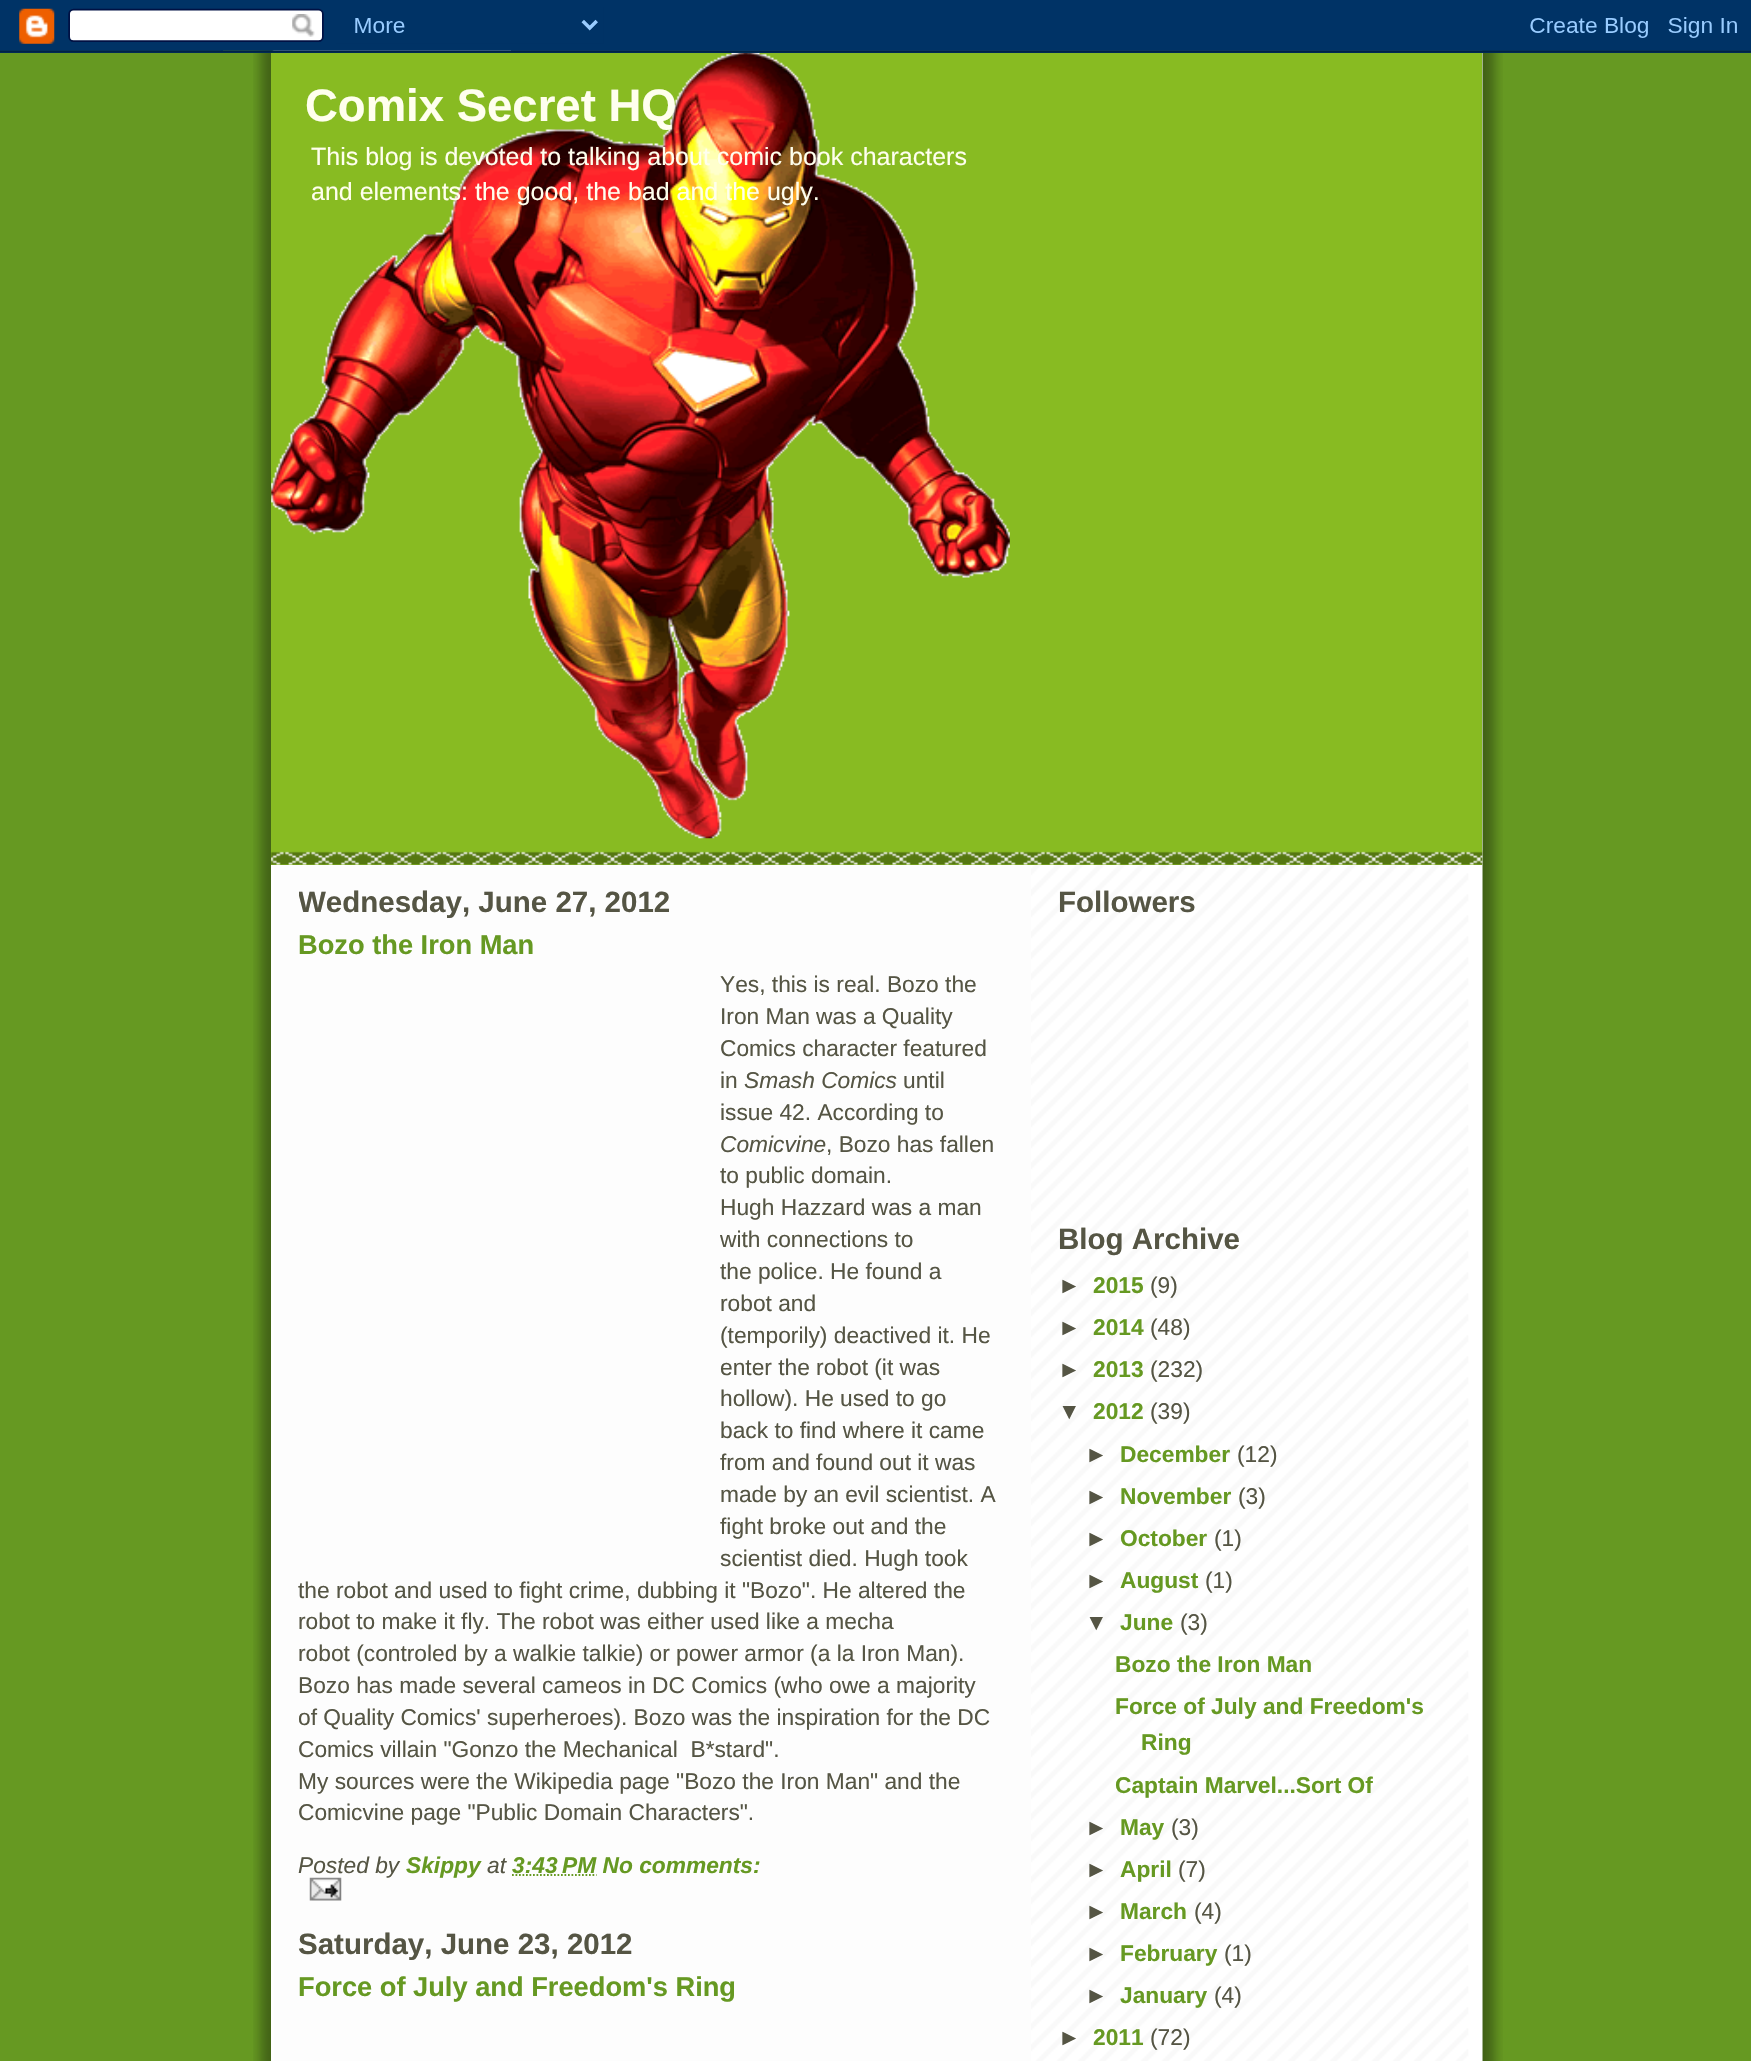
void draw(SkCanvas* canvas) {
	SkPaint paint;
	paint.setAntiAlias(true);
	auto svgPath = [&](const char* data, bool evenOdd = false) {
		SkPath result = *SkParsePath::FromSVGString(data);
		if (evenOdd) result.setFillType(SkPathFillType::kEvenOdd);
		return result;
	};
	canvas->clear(0xff669922);
	canvas->drawImageRect(SkImages::DeferredFromEncodedData(SkData::MakeFromFileName("img1.png")), SkRect::MakeXYWH(253, 50, 1250, 2011), SkSamplingOptions());
	canvas->drawImageRect(SkImages::DeferredFromEncodedData(SkData::MakeFromFileName("img2.png")), SkRect::MakeXYWH(0, 0, 1751, 53), SkSamplingOptions());
	paint.setColor(0xffffffff);
	canvas->drawRect(SkRect::MakeXYWH(271, 865, 3, 1196), paint);
	canvas->drawImageRect(SkImages::DeferredFromEncodedData(SkData::MakeFromFileName("img3.png")), SkRect::MakeXYWH(1031, 53, 452, 2008), SkSamplingOptions());
	paint.setColor(0xff88bb22);
	canvas->drawRect(SkRect::MakeXYWH(271, 53, 1211, 812), paint);
	canvas->drawImageRect(SkImages::DeferredFromEncodedData(SkData::MakeFromFileName("img4.png")), SkRect::MakeXYWH(271, 850, 1212, 15), SkSamplingOptions());
	canvas->drawImageRect(SkImages::DeferredFromEncodedData(SkData::MakeFromFileName("img5.png")), SkRect::MakeXYWH(271, 53, 739, 786), SkSamplingOptions());
	SkFont f1(fontMgr->matchFamilyStyle("Liberation Sans", SkFontStyle::Bold()), 45.5);
	f1.setSubpixel(true);
	paint.setColor(0xffffffee);
	canvas->drawString("Comix Secret HQ", 305, 121, f1, paint);
	SkFont f2(fontMgr->matchFamilyStyle("Liberation Sans", SkFontStyle::Normal()), 25);
	f2.setSubpixel(true);
	canvas->drawString("This blog is devoted to talking about comic book characters", 311, 165, f2, paint);
	canvas->drawString("and elements: the good, the bad and the ugly.", 311, 200, f2, paint);
	canvas->save();
	canvas->clipRect(SkRect::MakeXYWH(299, 865, 700, 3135));
	SkFont f3(fontMgr->matchFamilyStyle("Liberation Sans", SkFontStyle::Bold()), 29.5);
	f3.setSubpixel(true);
	paint.setColor(0xff555544);
	canvas->drawString("Wednesday, June 27, 2012", 298, 912, f3, paint);
	canvas->restore();
	SkFont f4(fontMgr->matchFamilyStyle("Liberation Sans", SkFontStyle::Bold()), 27.25);
	f4.setSubpixel(true);
	paint.setColor(0xff669922);
	canvas->drawString("Bozo the Iron Man", 298, 954, f4, paint);
	SkFont f5(fontMgr->matchFamilyStyle("Liberation Sans", SkFontStyle::Normal()), 22.75);
	f5.setSubpixel(true);
	paint.setColor(0xff555544);
	canvas->drawString("Yes, this is real. Bozo the", 720, 992, f5, paint);
	canvas->drawString("Iron Man was a Quality", 720, 1024, f5, paint);
	canvas->drawString("Comics character featured", 720, 1056, f5, paint);
	canvas->drawString("in", 720, 1088, f5, paint);
	SkFont f6(fontMgr->matchFamilyStyle("Liberation Sans", SkFontStyle::Italic()), 22.75);
	f6.setSubpixel(true);
	canvas->drawString("Smash Comics", 744, 1088, f6, paint);
	canvas->drawString("until", 903, 1088, f5, paint);
	canvas->drawString("issue 42. According to", 720, 1120, f5, paint);
	canvas->drawString("Comicvine", 720, 1152, f6, paint);
	canvas->drawString(", Bozo has fallen", 826, 1152, f5, paint);
	canvas->drawString("to public domain.", 720, 1183, f5, paint);
	canvas->drawString("Hugh Hazzard was a man", 720, 1215, f5, paint);
	canvas->drawString("with connections to", 720, 1247, f5, paint);
	canvas->drawString("the police. He found a", 720, 1279, f5, paint);
	canvas->drawString("robot and", 720, 1311, f5, paint);
	canvas->drawString("(temporily) deactived it. He", 720, 1343, f5, paint);
	canvas->drawString("enter the robot (it was", 720, 1375, f5, paint);
	canvas->drawString("hollow). He used to go", 720, 1406, f5, paint);
	canvas->drawString("back to find where it came", 720, 1438, f5, paint);
	canvas->drawString("from and found out it was", 720, 1470, f5, paint);
	canvas->drawString("made by an evil scientist. A", 720, 1502, f5, paint);
	canvas->drawString("fight broke out and the", 720, 1534, f5, paint);
	canvas->drawString("scientist died. Hugh took", 720, 1566, f5, paint);
	canvas->drawString("the robot and used to fight crime, dubbing it \"Bozo\". He altered the", 298, 1598, f5, paint);
	canvas->drawString("robot to make it fly. The robot was either used like a mecha", 298, 1629, f5, paint);
	canvas->drawString("robot (controled by a walkie talkie) or power armor (a la Iron Man).", 298, 1661, f5, paint);
	canvas->drawString("Bozo has made several cameos in DC Comics (who owe a majority", 298, 1693, f5, paint);
	canvas->drawString("of Quality Comics' superheroes). Bozo was the inspiration for the DC", 298, 1725, f5, paint);
	canvas->drawString("Comics villain \"Gonzo the Mechanical  B*stard\".", 298, 1757, f5, paint);
	canvas->drawString("My sources were the Wikipedia page \"Bozo the Iron Man\" and the", 298, 1789, f5, paint);
	canvas->drawString("Comicvine page \"Public Domain Characters\".", 298, 1820, f5, paint);
	canvas->drawString("Posted by", 298, 1873, f6, paint);
	SkFont f7(fontMgr->matchFamilyStyle("Liberation Sans", SkFontStyle::BoldItalic()), 22.75);
	f7.setSubpixel(true);
	paint.setColor(0xff669922);
	canvas->drawString("Skippy", 406, 1873, f7, paint);
	paint.setColor(0xff555544);
	canvas->drawString("at", 487, 1873, f6, paint);
	paint.setColor(0xff669922);
	canvas->drawString("3:43 PM No comments:", 512, 1873, f7, paint);
	paint.setStroke(true);
	paint.setStrokeWidth(1.8);
	paint.setPathEffect(SkDashPathEffect::Make({{1.75f, 1.75f}}, 0));
	canvas->drawPath(svgPath("M512 1875H596.5"), paint);
	paint.setPathEffect(nullptr);
	canvas->drawImageRect(SkImages::DeferredFromEncodedData(SkData::MakeFromFileName("img6.png")), SkRect::MakeXYWH(309, 1877, 33, 24), SkSamplingOptions());
	paint.setStroke(false);
	paint.setColor(0xff555544);
	canvas->drawString("Saturday, June 23, 2012", 298, 1954, f3, paint);
	paint.setColor(0xff669922);
	canvas->drawString("Force of July and Freedom's Ring", 298, 1996, f4, paint);
	paint.setColor(0xff555544);
	canvas->drawString("Followers", 1058, 912, f3, paint);
	canvas->drawString("Blog Archive", 1058, 1249, f3, paint);
	SkFont f8(fontMgr->matchFamilyStyle("Liberation Sans", SkFontStyle::Bold()), 22.75);
	f8.setSubpixel(true);
	canvas->drawString("►", 1058, 1293, f8, paint);
	paint.setColor(0xff669922);
	canvas->drawString("2015", 1093, 1293, f8, paint);
	paint.setColor(0xff555544);
	canvas->drawString("(9)", 1150, 1293, f5, paint);
	canvas->drawString("►", 1058, 1335, f8, paint);
	paint.setColor(0xff669922);
	canvas->drawString("2014", 1093, 1335, f8, paint);
	paint.setColor(0xff555544);
	canvas->drawString("(48)", 1150, 1335, f5, paint);
	canvas->drawString("►", 1058, 1377, f8, paint);
	paint.setColor(0xff669922);
	canvas->drawString("2013", 1093, 1377, f8, paint);
	paint.setColor(0xff555544);
	canvas->drawString("(232)", 1150, 1377, f5, paint);
	canvas->drawString("▼", 1058, 1419, f8, paint);
	paint.setColor(0xff669922);
	canvas->drawString("2012", 1093, 1419, f8, paint);
	paint.setColor(0xff555544);
	canvas->drawString("(39)", 1150, 1419, f5, paint);
	canvas->drawString("►", 1085, 1462, f8, paint);
	paint.setColor(0xff669922);
	canvas->drawString("December", 1120, 1462, f8, paint);
	paint.setColor(0xff555544);
	canvas->drawString("(12)", 1237, 1462, f5, paint);
	canvas->drawString("►", 1085, 1504, f8, paint);
	paint.setColor(0xff669922);
	canvas->drawString("November", 1120, 1504, f8, paint);
	paint.setColor(0xff555544);
	canvas->drawString("(3)", 1238, 1504, f5, paint);
	canvas->drawString("►", 1085, 1546, f8, paint);
	paint.setColor(0xff669922);
	canvas->drawString("October", 1120, 1546, f8, paint);
	paint.setColor(0xff555544);
	canvas->drawString("(1)", 1214, 1546, f5, paint);
	canvas->drawString("►", 1085, 1588, f8, paint);
	paint.setColor(0xff669922);
	canvas->drawString("August", 1120, 1588, f8, paint);
	paint.setColor(0xff555544);
	canvas->drawString("(1)", 1205, 1588, f5, paint);
	canvas->drawString("▼", 1085, 1630, f8, paint);
	paint.setColor(0xff669922);
	canvas->drawString("June", 1120, 1630, f8, paint);
	paint.setColor(0xff555544);
	canvas->drawString("(3)", 1180, 1630, f5, paint);
	paint.setColor(0xff669922);
	canvas->drawString("Bozo the Iron Man", 1115, 1672, f8, paint);
	canvas->drawString("Force of July and Freedom's", 1115, 1714, f8, paint);
	canvas->drawString("Ring", 1141, 1750, f8, paint);
	canvas->drawString("Captain Marvel...Sort Of", 1115, 1793, f8, paint);
	paint.setColor(0xff555544);
	canvas->drawString("►", 1085, 1835, f8, paint);
	paint.setColor(0xff669922);
	canvas->drawString("May", 1120, 1835, f8, paint);
	paint.setColor(0xff555544);
	canvas->drawString("(3)", 1171, 1835, f5, paint);
	canvas->drawString("►", 1085, 1877, f8, paint);
	paint.setColor(0xff669922);
	canvas->drawString("April", 1120, 1877, f8, paint);
	paint.setColor(0xff555544);
	canvas->drawString("(7)", 1178, 1877, f5, paint);
	canvas->drawString("►", 1085, 1919, f8, paint);
	paint.setColor(0xff669922);
	canvas->drawString("March", 1120, 1919, f8, paint);
	paint.setColor(0xff555544);
	canvas->drawString("(4)", 1194, 1919, f5, paint);
	canvas->drawString("►", 1085, 1961, f8, paint);
	paint.setColor(0xff669922);
	canvas->drawString("February", 1120, 1961, f8, paint);
	paint.setColor(0xff555544);
	canvas->drawString("(1)", 1224, 1961, f5, paint);
	canvas->drawString("►", 1085, 2003, f8, paint);
	paint.setColor(0xff669922);
	canvas->drawString("January", 1120, 2003, f8, paint);
	paint.setColor(0xff555544);
	canvas->drawString("(4)", 1214, 2003, f5, paint);
	canvas->drawString("►", 1058, 2045, f8, paint);
	paint.setColor(0xff669922);
	canvas->drawString("2011", 1093, 2045, f8, paint);
	paint.setColor(0xff555544);
	canvas->drawString("(72)", 1150, 2045, f5, paint);
}
